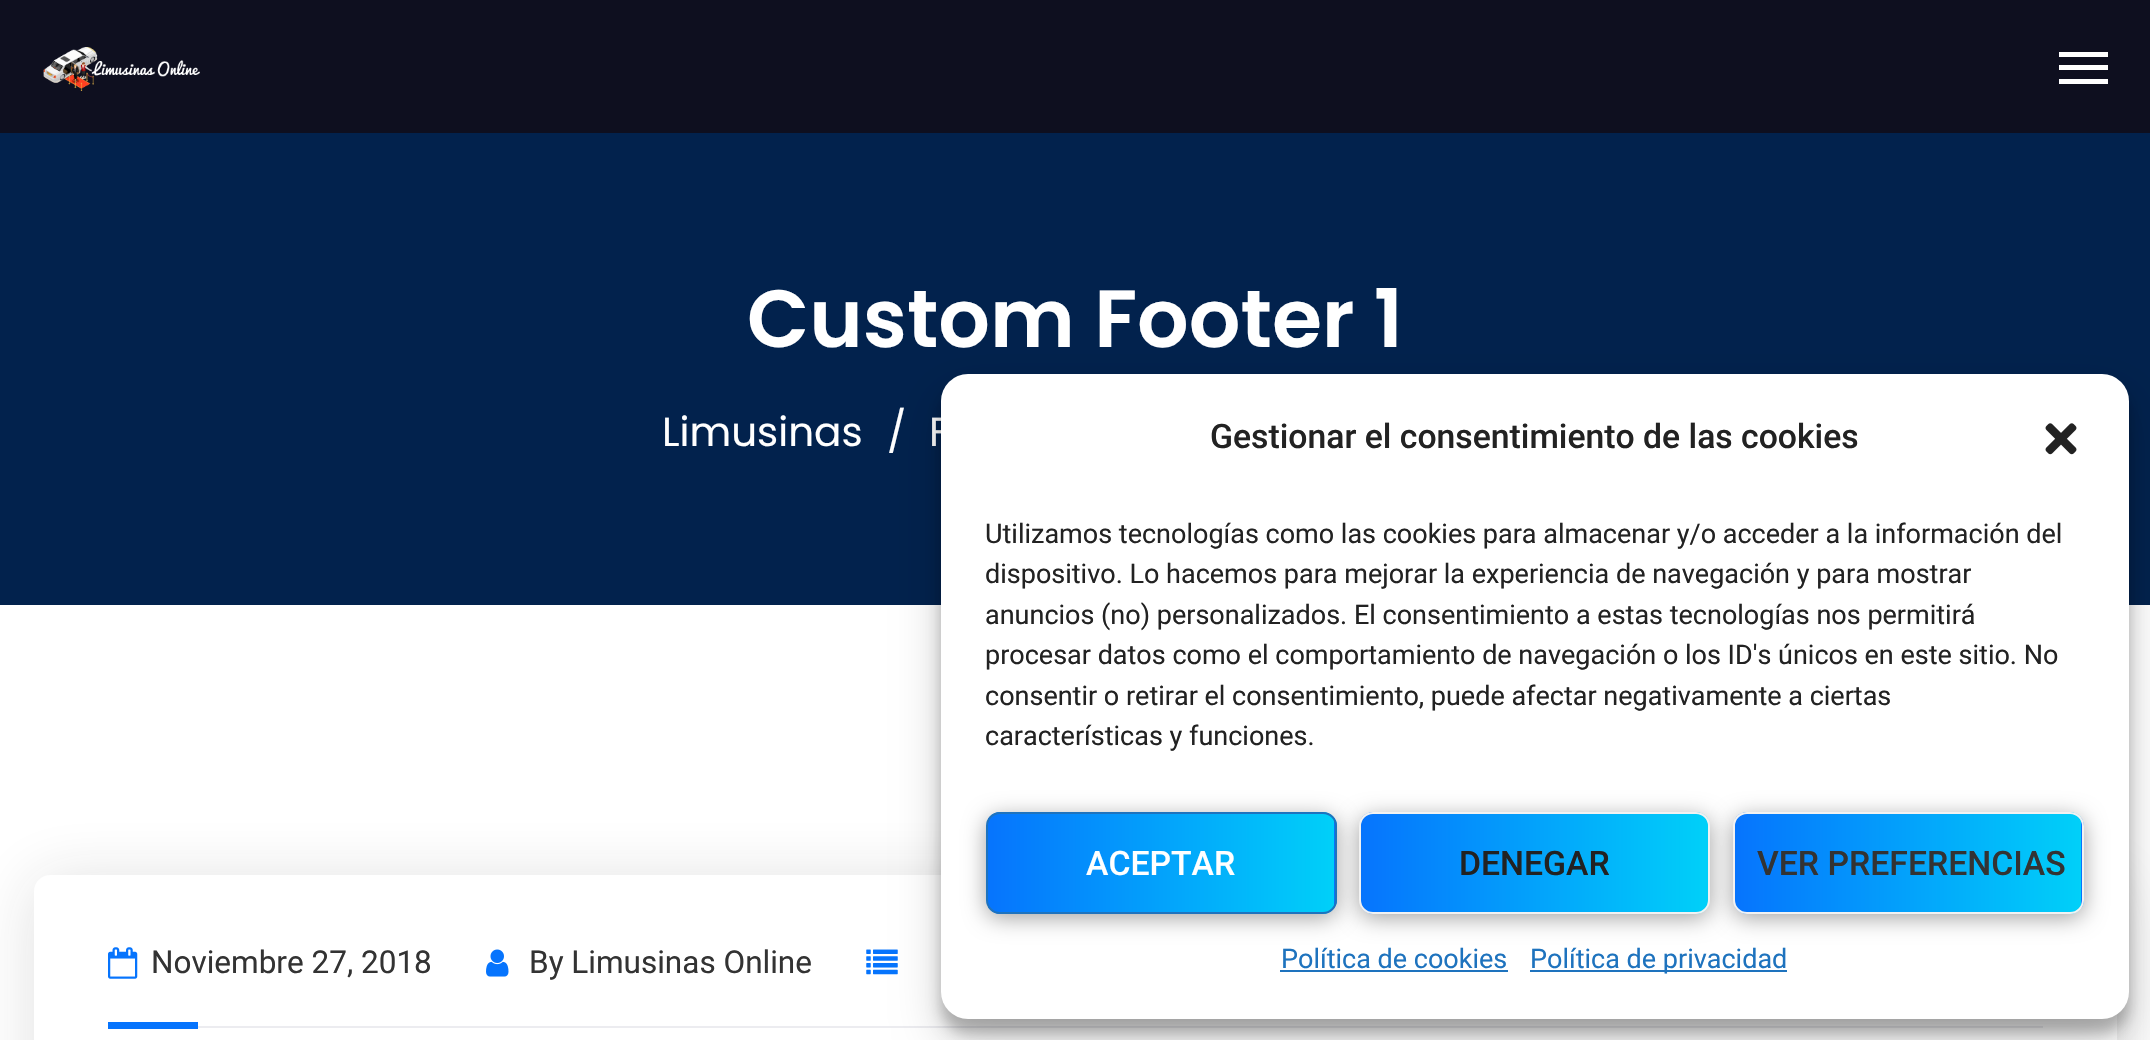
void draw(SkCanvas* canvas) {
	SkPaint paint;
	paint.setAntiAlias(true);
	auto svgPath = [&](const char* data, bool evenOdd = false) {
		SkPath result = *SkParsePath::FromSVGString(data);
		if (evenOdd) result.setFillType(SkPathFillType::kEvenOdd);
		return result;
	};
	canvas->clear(0xffffffff);
	paint.setColor(0xff0e0f1f);
	canvas->drawRect(SkRect::MakeXYWH(0, 0, 2150, 133), paint);
	canvas->drawImageRect(SkImages::DeferredFromEncodedData(SkData::MakeFromFileName("img1.png")), SkRect::MakeXYWH(43, 47, 157, 44), SkSamplingOptions());
	paint.setColor(0xffffffff);
	canvas->drawRect(SkRect::MakeXYWH(2059, 52, 49, 5), paint);
	canvas->drawRect(SkRect::MakeXYWH(2059, 65, 49, 5), paint);
	canvas->drawRect(SkRect::MakeXYWH(2059, 79, 49, 5), paint);
	paint.setColor(0xff02224d);
	canvas->drawRect(SkRect::MakeXYWH(0, 133, 2150, 472), paint);
	SkFont f1(fontMgr->matchFamilyStyle("Poppins", SkFontStyle(600, SkFontStyle::kNormal_Width, SkFontStyle::kUpright_Slant)), 81);
	f1.setSubpixel(true);
	paint.setColor(0xffffffff);
	canvas->drawString("Custom Footer 1", 747, 347, f1, paint);
	SkFont f2(fontMgr->matchFamilyStyle("Poppins", SkFontStyle::Normal()), 40.5);
	f2.setSubpixel(true);
	canvas->drawString("Limusinas", 662, 446, f2, paint);
	canvas->drawString("/", 887, 446, f2, paint);
	canvas->drawString("F", 929, 446, f2, paint);
	paint.setColor(0x24222222);
	paint.setMaskFilter(SkMaskFilter::MakeBlur(kNormal_SkBlurStyle, 32.5));
	canvas->drawRoundRect(SkRect::MakeXYWH(34, 880, 2083, 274), 16, 16, paint);
	paint.setMaskFilter(nullptr);
	paint.setColor(0xffffffff);
	canvas->drawRoundRect(SkRect::MakeXYWH(34, 875, 2083, 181), 16, 16, paint);
	paint.setColor(0xffececf0);
	canvas->drawRect(SkRect::MakeXYWH(198, 1026, 1845, 2), paint);
	canvas->drawImageRect(SkImages::DeferredFromEncodedData(SkData::MakeFromFileName("img2.png")), SkRect::MakeXYWH(108, 947, 30, 32), SkSamplingOptions());
	SkFont f3(fontMgr->matchFamilyStyle("Roboto", SkFontStyle::Normal()), 31.5);
	f3.setSubpixel(true);
	paint.setColor(0xff333333);
	canvas->drawString("Noviembre 27, 2018", 151, 973, f3, paint);
	canvas->drawImageRect(SkImages::DeferredFromEncodedData(SkData::MakeFromFileName("img3.png")), SkRect::MakeXYWH(486, 949, 23, 28), SkSamplingOptions());
	canvas->drawString("By Limusinas Online", 529, 973, f3, paint);
	canvas->drawImageRect(SkImages::DeferredFromEncodedData(SkData::MakeFromFileName("img4.png")), SkRect::MakeXYWH(866, 949, 32, 26), SkSamplingOptions());
	paint.setColor(0xff0674fd);
	canvas->drawRect(SkRect::MakeXYWH(108, 1022, 90, 7), paint);
	paint.setColor(0x3b000000);
	paint.setMaskFilter(SkMaskFilter::MakeBlur(kNormal_SkBlurStyle, 7));
	canvas->drawRoundRect(SkRect::MakeXYWH(941, 387, 1188, 646), 27, 27, paint);
	paint.setMaskFilter(nullptr);
	paint.setColor(0x30000000);
	paint.setMaskFilter(SkMaskFilter::MakeBlur(kNormal_SkBlurStyle, 22.5));
	canvas->drawRoundRect(SkRect::MakeXYWH(941, 396, 1188, 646), 27, 27, paint);
	paint.setMaskFilter(nullptr);
	paint.setColor(0xffffffff);
	canvas->drawRoundRect(SkRect::MakeXYWH(941, 374, 1188, 645), 27, 27, paint);
	SkFont f4(fontMgr->matchFamilyStyle("Roboto", SkFontStyle(500, SkFontStyle::kNormal_Width, SkFontStyle::kUpright_Slant)), 33.75);
	f4.setSubpixel(true);
	paint.setColor(0xff222222);
	canvas->drawString("Gestionar el consentimiento de las cookies", 1210, 448, f4, paint);
	canvas->drawImageRect(SkImages::DeferredFromEncodedData(SkData::MakeFromFileName("img5.png")), SkRect::MakeXYWH(2045, 423, 32, 32), SkSamplingOptions());
	SkFont f5(fontMgr->matchFamilyStyle("Roboto", SkFontStyle::Normal()), 27);
	f5.setSubpixel(true);
	canvas->drawString("Utilizamos tecnologías como las cookies para almacenar y/o acceder a la información del", 985, 543, f5, paint);
	canvas->drawString("dispositivo. Lo hacemos para mejorar la experiencia de navegación y para mostrar", 985, 583, f5, paint);
	canvas->drawString("anuncios (no) personalizados. El consentimiento a estas tecnologías nos permitirá", 985, 624, f5, paint);
	canvas->drawString("procesar datos como el comportamiento de navegación o los ID's únicos en este sitio. No", 985, 664, f5, paint);
	canvas->drawString("consentir o retirar el consentimiento, puede afectar negativamente a ciertas", 985, 705, f5, paint);
	canvas->drawString("características y funciones.", 985, 745, f5, paint);
	paint.setColor(0x5c000000);
	paint.setMaskFilter(SkMaskFilter::MakeBlur(kNormal_SkBlurStyle, 11));
	canvas->drawRoundRect(SkRect::MakeXYWH(986, 817, 351, 101), 14, 14, paint);
	paint.setMaskFilter(nullptr);
	canvas->save();
	canvas->clipPath(svgPath("M1000 812H1323C1330.5 812 1337 818.5 1337 826V900C1337 907.5 1330.5 914 1323 914H1000C992.5 914 986 907.5 986 900V826C986 818.5 992.5 812 1000 812Z"), true);
	{
		const SkColor colors[] = {0xff0674fd, 0xff00d0f9};
		const float stops[] = {0, 1};
		const SkPoint ends[] = {{988, 863}, {1334, 863}};
		paint.setShader(SkGradientShader::MakeLinear(ends, colors, stops, 2, SkTileMode::kClamp));
		paint.setAlpha(255);
	}
	canvas->drawRect(SkRect::MakeXYWH(988, 812, 346, 102), paint);
	{
		const SkColor colors[] = {0xff0674fd, 0xff00d0f9};
		const float stops[] = {0, 1};
		const SkPoint ends[] = {{1334, 863}, {1681, 863}};
		paint.setShader(SkGradientShader::MakeLinear(ends, colors, stops, 2, SkTileMode::kClamp));
		paint.setAlpha(255);
	}
	canvas->drawRect(SkRect::MakeXYWH(1334, 812, 3, 102), paint);
	canvas->restore();
	paint.setStroke(true);
	paint.setStrokeWidth(2);
	paint.setShader(nullptr);
	paint.setColor(0xff1e73be);
	canvas->drawRoundRect(SkRect::MakeXYWH(987, 813, 349, 100), 13, 13, paint);
	paint.setStroke(false);
	paint.setColor(0xffffffff);
	canvas->drawString("ACEPTAR", 1086, 875, f4, paint);
	paint.setColor(0x5c000000);
	paint.setMaskFilter(SkMaskFilter::MakeBlur(kNormal_SkBlurStyle, 11));
	canvas->drawRoundRect(SkRect::MakeXYWH(1359, 817, 351, 101), 14, 14, paint);
	paint.setMaskFilter(nullptr);
	canvas->save();
	canvas->clipPath(svgPath("M1373 812H1696C1703.5 812 1710 818.5 1710 826V900C1710 907.5 1703.5 914 1696 914H1373C1365.5 914 1359 907.5 1359 900V826C1359 818.5 1365.5 812 1373 812Z"), true);
	{
		const SkColor colors[] = {0xff0674fd, 0xff00d0f9};
		const float stops[] = {0, 1};
		const SkPoint ends[] = {{1361, 863}, {1708, 863}};
		paint.setShader(SkGradientShader::MakeLinear(ends, colors, stops, 2, SkTileMode::kClamp));
		paint.setAlpha(255);
	}
	canvas->drawRect(SkRect::MakeXYWH(1361, 812, 347, 102), paint);
	canvas->restore();
	paint.setStroke(true);
	paint.setShader(nullptr);
	paint.setColor(0xfff2f2f2);
	canvas->drawRoundRect(SkRect::MakeXYWH(1360, 813, 349, 100), 13, 13, paint);
	paint.setStroke(false);
	paint.setColor(0xff222222);
	canvas->drawString("DENEGAR", 1459, 875, f4, paint);
	paint.setColor(0x5c000000);
	paint.setMaskFilter(SkMaskFilter::MakeBlur(kNormal_SkBlurStyle, 11));
	canvas->drawRoundRect(SkRect::MakeXYWH(1733, 817, 351, 101), 14, 14, paint);
	paint.setMaskFilter(nullptr);
	canvas->save();
	canvas->clipPath(svgPath("M1747 812H2070C2077.5 812 2084 818.5 2084 826V900C2084 907.5 2077.5 914 2070 914H1747C1739.5 914 1733 907.5 1733 900V826C1733 818.5 1739.5 812 1747 812Z"), true);
	{
		const SkColor colors[] = {0xff0674fd, 0xff00d0f9};
		const float stops[] = {0, 1};
		const SkPoint ends[] = {{1735, 863}, {2081, 863}};
		paint.setShader(SkGradientShader::MakeLinear(ends, colors, stops, 2, SkTileMode::kClamp));
		paint.setAlpha(255);
	}
	canvas->drawRect(SkRect::MakeXYWH(1735, 812, 346, 102), paint);
	{
		const SkColor colors[] = {0xff0674fd, 0xff00d0f9};
		const float stops[] = {0, 1};
		const SkPoint ends[] = {{2081, 863}, {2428, 863}};
		paint.setShader(SkGradientShader::MakeLinear(ends, colors, stops, 2, SkTileMode::kClamp));
		paint.setAlpha(255);
	}
	canvas->drawRect(SkRect::MakeXYWH(2081, 812, 3, 102), paint);
	canvas->restore();
	paint.setStroke(true);
	paint.setShader(nullptr);
	paint.setColor(0xfff2f2f2);
	canvas->drawRoundRect(SkRect::MakeXYWH(1734, 813, 349, 100), 13, 13, paint);
	paint.setStroke(false);
	paint.setColor(0xff333333);
	canvas->drawString("VER PREFERENCIAS", 1757, 875, f4, paint);
	paint.setColor(0xff1e73be);
	canvas->drawString("Política de cookies", 1281, 968, f5, paint);
	canvas->drawRect(SkRect::MakeXYWH(1280, 970, 228, 2), paint);
	canvas->drawRect(SkRect::MakeXYWH(1530, 970, 257, 2), paint);
	canvas->drawString("Política de privacidad", 1530, 968, f5, paint);
}
